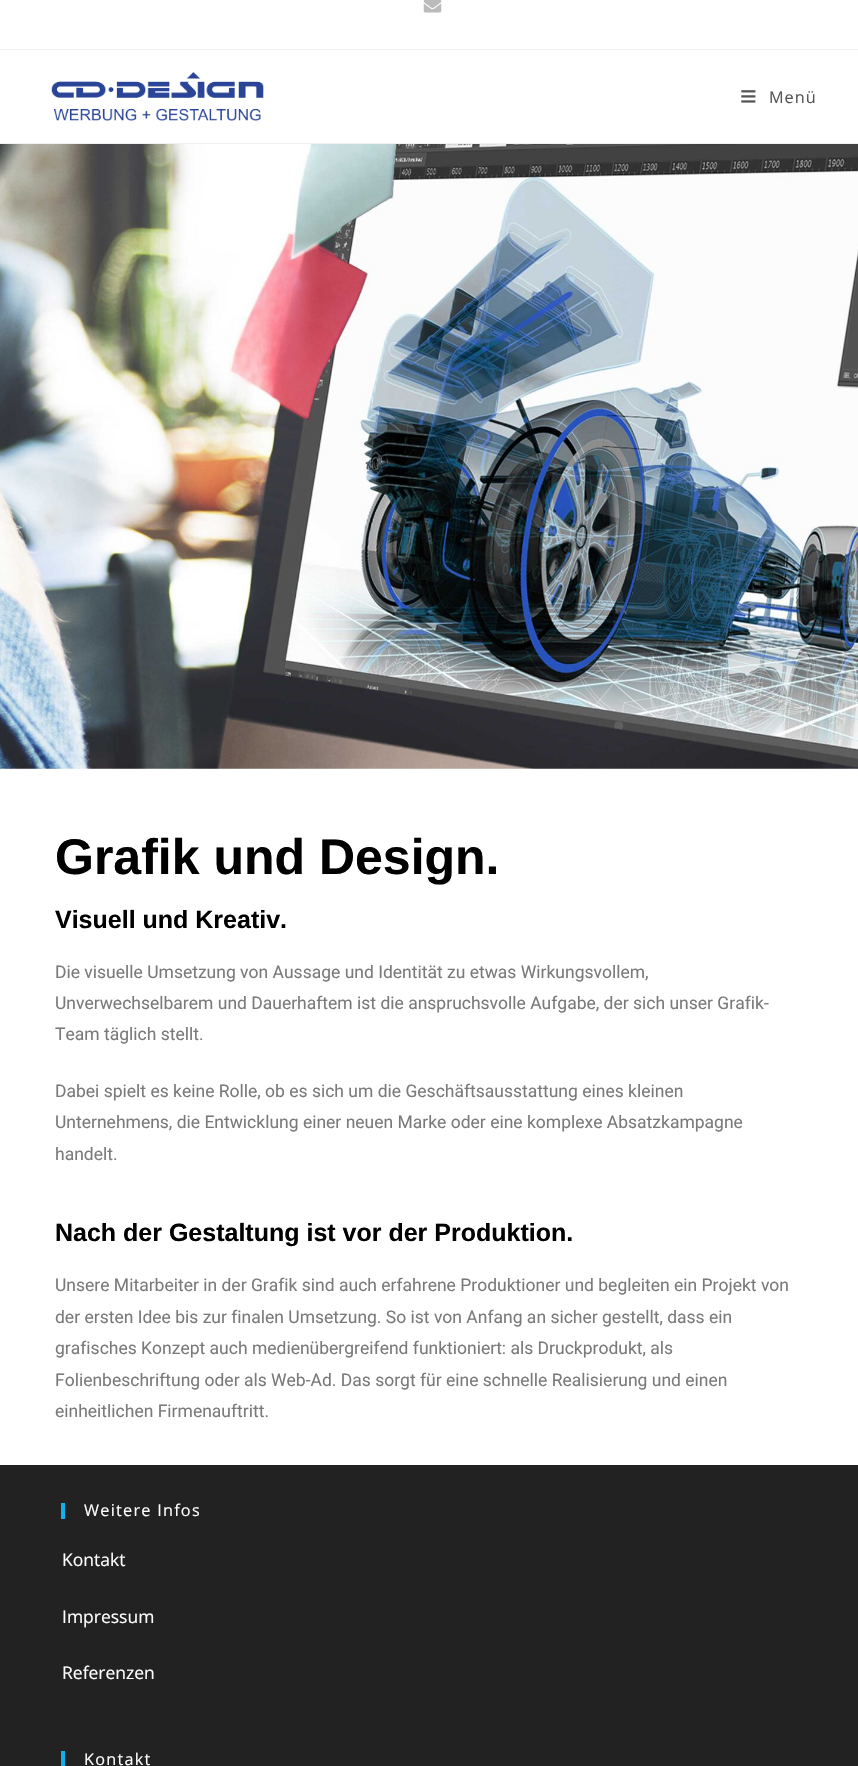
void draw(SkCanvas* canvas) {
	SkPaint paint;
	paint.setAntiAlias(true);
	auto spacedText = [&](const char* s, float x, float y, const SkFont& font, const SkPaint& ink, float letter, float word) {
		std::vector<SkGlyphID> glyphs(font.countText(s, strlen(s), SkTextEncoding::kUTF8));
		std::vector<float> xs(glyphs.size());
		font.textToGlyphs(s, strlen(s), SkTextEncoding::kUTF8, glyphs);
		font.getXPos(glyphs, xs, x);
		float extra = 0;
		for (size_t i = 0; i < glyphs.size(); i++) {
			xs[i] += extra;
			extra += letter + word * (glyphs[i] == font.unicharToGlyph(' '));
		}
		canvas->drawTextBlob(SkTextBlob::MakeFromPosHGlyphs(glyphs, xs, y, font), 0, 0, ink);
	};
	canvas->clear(0xffffffff);
	paint.setColor(0xfff1f1f1);
	canvas->drawRect(SkRect::MakeXYWH(0, 49, 858, 1), paint);
	canvas->drawImageRect(SkImages::DeferredFromEncodedData(SkData::MakeFromFileName("img1.png")), SkRect::MakeXYWH(423, 0, 19, 13), SkSamplingOptions());
	canvas->drawRect(SkRect::MakeXYWH(0, 143, 858, 1), paint);
	canvas->drawImageRect(SkImages::DeferredFromEncodedData(SkData::MakeFromFileName("img2.png")), SkRect::MakeXYWH(51, 71, 213, 50), SkSamplingOptions());
	canvas->drawImageRect(SkImages::DeferredFromEncodedData(SkData::MakeFromFileName("img3.png")), SkRect::MakeXYWH(741, 90, 15, 13), SkSamplingOptions());
	SkFont f1(fontMgr->matchFamilyStyle("Open Sans", SkFontStyle::Normal()), 16.25);
	f1.setSubpixel(true);
	paint.setColor(0xff555555);
	spacedText("Menü", 769, 103, f1, paint, 1, 0);
	canvas->drawImageRect(SkImages::DeferredFromEncodedData(SkData::MakeFromFileName("img4.png")), SkRect::MakeXYWH(0, 144, 858, 625), SkSamplingOptions());
	SkFont f2(fontMgr->matchFamilyStyle("Liberation Sans", SkFontStyle::Bold()), 50);
	f2.setSubpixel(true);
	paint.setColor(0xff000000);
	canvas->drawString("Grafik und Design.", 55, 874, f2, paint);
	SkFont f3(fontMgr->matchFamilyStyle("Liberation Sans", SkFontStyle::Bold()), 25);
	f3.setSubpixel(true);
	canvas->drawString("Visuell und Kreativ.", 55, 928, f3, paint);
	SkFont f4(fontMgr->matchFamilyStyle("Roboto", SkFontStyle::Normal()), 17.5);
	f4.setSubpixel(true);
	paint.setColor(0xff7a7a7a);
	canvas->drawString("Die visuelle Umsetzung von Aussage und Identität zu etwas Wirkungsvollem,", 55, 978, f4, paint);
	canvas->drawString("Unverwechselbarem und Dauerhaftem ist die anspruchsvolle Aufgabe, der sich unser Grafik-", 55, 1009, f4, paint);
	canvas->drawString("Team täglich stellt.", 55, 1040, f4, paint);
	canvas->drawString("Dabei spielt es keine Rolle, ob es sich um die Geschäftsausstattung eines kleinen", 55, 1097, f4, paint);
	canvas->drawString("Unternehmens, die Entwicklung einer neuen Marke oder eine komplexe Absatzkampagne", 55, 1128, f4, paint);
	canvas->drawString("handelt.", 55, 1160, f4, paint);
	paint.setColor(0xff000000);
	canvas->drawString("Nach der Gestaltung ist vor der Produktion.", 55, 1241, f3, paint);
	paint.setColor(0xff7a7a7a);
	canvas->drawString("Unsere Mitarbeiter in der Grafik sind auch erfahrene Produktioner und begleiten ein Projekt von", 55, 1291, f4, paint);
	canvas->drawString("der ersten Idee bis zur finalen Umsetzung. So ist von Anfang an sicher gestellt, dass ein", 55, 1323, f4, paint);
	canvas->drawString("grafisches Konzept auch medienübergreifend funktioniert: als Druckprodukt, als", 55, 1354, f4, paint);
	canvas->drawString("Folienbeschriftung oder als Web-Ad. Das sorgt für eine schnelle Realisierung und einen", 55, 1386, f4, paint);
	canvas->drawString("einheitlichen Firmenauftritt.", 55, 1417, f4, paint);
	paint.setColor(0xff222222);
	canvas->drawRect(SkRect::MakeXYWH(0, 1465, 858, 301), paint);
	paint.setColor(0xff13aff0);
	canvas->drawRect(SkRect::MakeXYWH(61, 1503, 4, 16), paint);
	paint.setColor(0xffffffff);
	spacedText("Weitere Infos", 84, 1516, f1, paint, 1.25, 0);
	SkFont f5(fontMgr->matchFamilyStyle("Open Sans", SkFontStyle::Normal()), 17.5);
	f5.setSubpixel(true);
	canvas->drawString("Kontakt", 62, 1566, f5, paint);
	canvas->drawString("Impressum", 62, 1623, f5, paint);
	canvas->drawString("Referenzen", 62, 1679, f5, paint);
	paint.setColor(0xff13aff0);
	canvas->drawRect(SkRect::MakeXYWH(61, 1751, 4, 15), paint);
	paint.setColor(0xffffffff);
	spacedText("Kontakt", 84, 1765, f1, paint, 1.25, 0);
}
